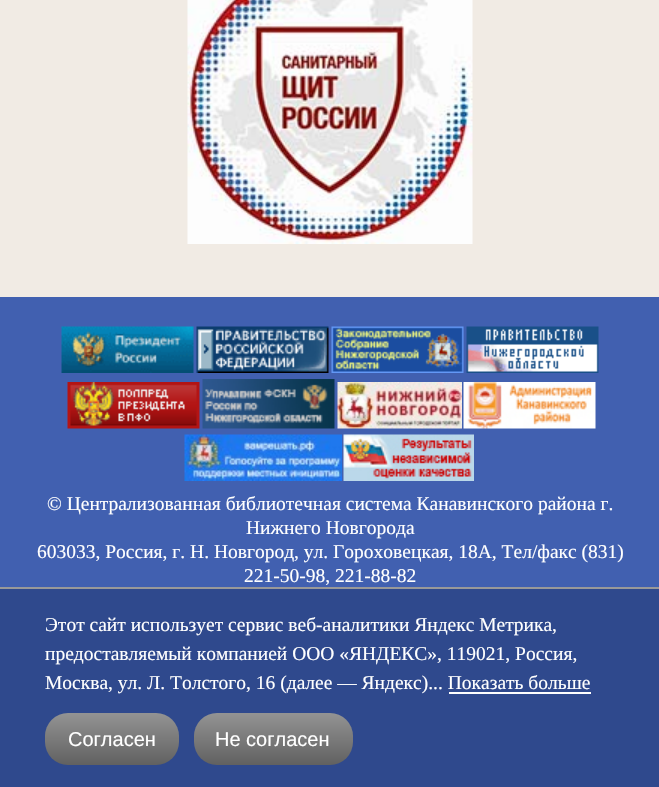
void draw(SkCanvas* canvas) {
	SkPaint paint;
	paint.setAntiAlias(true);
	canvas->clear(0xfff1ebe4);
	canvas->drawImageRect(SkImages::DeferredFromEncodedData(SkData::MakeFromFileName("img1.png")), SkRect::MakeXYWH(187, 0, 286, 244), SkSamplingOptions());
	paint.setColor(0xff4160b0);
	canvas->drawRect(SkRect::MakeXYWH(0, 297, 659, 290), paint);
	canvas->drawImageRect(SkImages::DeferredFromEncodedData(SkData::MakeFromFileName("img2.png")), SkRect::MakeXYWH(61, 326, 133, 47), SkSamplingOptions());
	canvas->drawImageRect(SkImages::DeferredFromEncodedData(SkData::MakeFromFileName("img3.png")), SkRect::MakeXYWH(196, 326, 133, 47), SkSamplingOptions());
	canvas->drawImageRect(SkImages::DeferredFromEncodedData(SkData::MakeFromFileName("img4.png")), SkRect::MakeXYWH(331, 326, 133, 47), SkSamplingOptions());
	canvas->drawImageRect(SkImages::DeferredFromEncodedData(SkData::MakeFromFileName("img5.png")), SkRect::MakeXYWH(466, 326, 133, 47), SkSamplingOptions());
	canvas->drawImageRect(SkImages::DeferredFromEncodedData(SkData::MakeFromFileName("img6.png")), SkRect::MakeXYWH(67, 382, 133, 47), SkSamplingOptions());
	canvas->drawImageRect(SkImages::DeferredFromEncodedData(SkData::MakeFromFileName("img7.png")), SkRect::MakeXYWH(202, 379, 133, 50), SkSamplingOptions());
	canvas->drawImageRect(SkImages::DeferredFromEncodedData(SkData::MakeFromFileName("img8.png")), SkRect::MakeXYWH(337, 382, 125, 47), SkSamplingOptions());
	canvas->drawImageRect(SkImages::DeferredFromEncodedData(SkData::MakeFromFileName("img9.png")), SkRect::MakeXYWH(463, 382, 133, 47), SkSamplingOptions());
	canvas->drawImageRect(SkImages::DeferredFromEncodedData(SkData::MakeFromFileName("img10.png")), SkRect::MakeXYWH(184, 434, 158, 47), SkSamplingOptions());
	canvas->drawImageRect(SkImages::DeferredFromEncodedData(SkData::MakeFromFileName("img11.png")), SkRect::MakeXYWH(343, 434, 131, 47), SkSamplingOptions());
	SkFont f1(fontMgr->matchFamilyStyle("Liberation Serif", SkFontStyle::Normal()), 19.5);
	f1.setSubpixel(true);
	paint.setColor(0xffffffff);
	canvas->drawString("© Централизованная библиотечная система Канавинского района г.", 47, 510, f1, paint);
	canvas->drawString("Нижнего Новгорода", 246, 534, f1, paint);
	canvas->drawString("603033, Россия, г. Н. Новгород, ул. Гороховецкая, 18А, Тел/факс (831)", 37, 558, f1, paint);
	canvas->drawString("221-50-98, 221-88-82", 244, 582, f1, paint);
	paint.setColor(0xff2f498d);
	canvas->drawRect(SkRect::MakeXYWH(0, 589, 659, 198), paint);
	paint.setColor(0xff999999);
	canvas->drawRect(SkRect::MakeXYWH(0, 587, 659, 2), paint);
	paint.setColor(0xffffffff);
	canvas->drawString("Этот сайт использует сервис веб-аналитики Яндекс Метрика,", 45, 631, f1, paint);
	canvas->drawString("предоставляемый компанией ООО «ЯНДЕКС», 119021, Россия,", 45, 660, f1, paint);
	canvas->drawString("Москва, ул. Л. Толстого, 16 (далее — Яндекс)... Показать больше", 45, 689, f1, paint);
	canvas->drawRect(SkRect::MakeXYWH(449, 692, 142, 2), paint);
	{
		const SkColor colors[] = {0xff939393, 0xff7a7a7a, 0xff616161};
		const float stops[] = {0, 0.5, 1};
		const SkPoint ends[] = {{112, 713}, {112, 765}};
		paint.setShader(SkGradientShader::MakeLinear(ends, colors, stops, 3, SkTileMode::kClamp));
		paint.setAlpha(255);
	}
	canvas->drawRoundRect(SkRect::MakeXYWH(45, 713, 134, 52), 23, 23, paint);
	SkFont f2(fontMgr->matchFamilyStyle("Liberation Sans", SkFontStyle::Normal()), 20);
	f2.setSubpixel(true);
	paint.setShader(nullptr);
	paint.setColor(0xffffffff);
	canvas->drawString("Согласен", 68, 746, f2, paint);
	{
		const SkColor colors[] = {0xff939393, 0xff7a7a7a, 0xff616161};
		const float stops[] = {0, 0.5, 1};
		const SkPoint ends[] = {{273, 713}, {273, 765}};
		paint.setShader(SkGradientShader::MakeLinear(ends, colors, stops, 3, SkTileMode::kClamp));
		paint.setAlpha(255);
	}
	canvas->drawRoundRect(SkRect::MakeXYWH(194, 713, 159, 52), 23, 23, paint);
	paint.setShader(nullptr);
	paint.setColor(0xffffffff);
	canvas->drawString("Не согласен", 215, 746, f2, paint);
}
